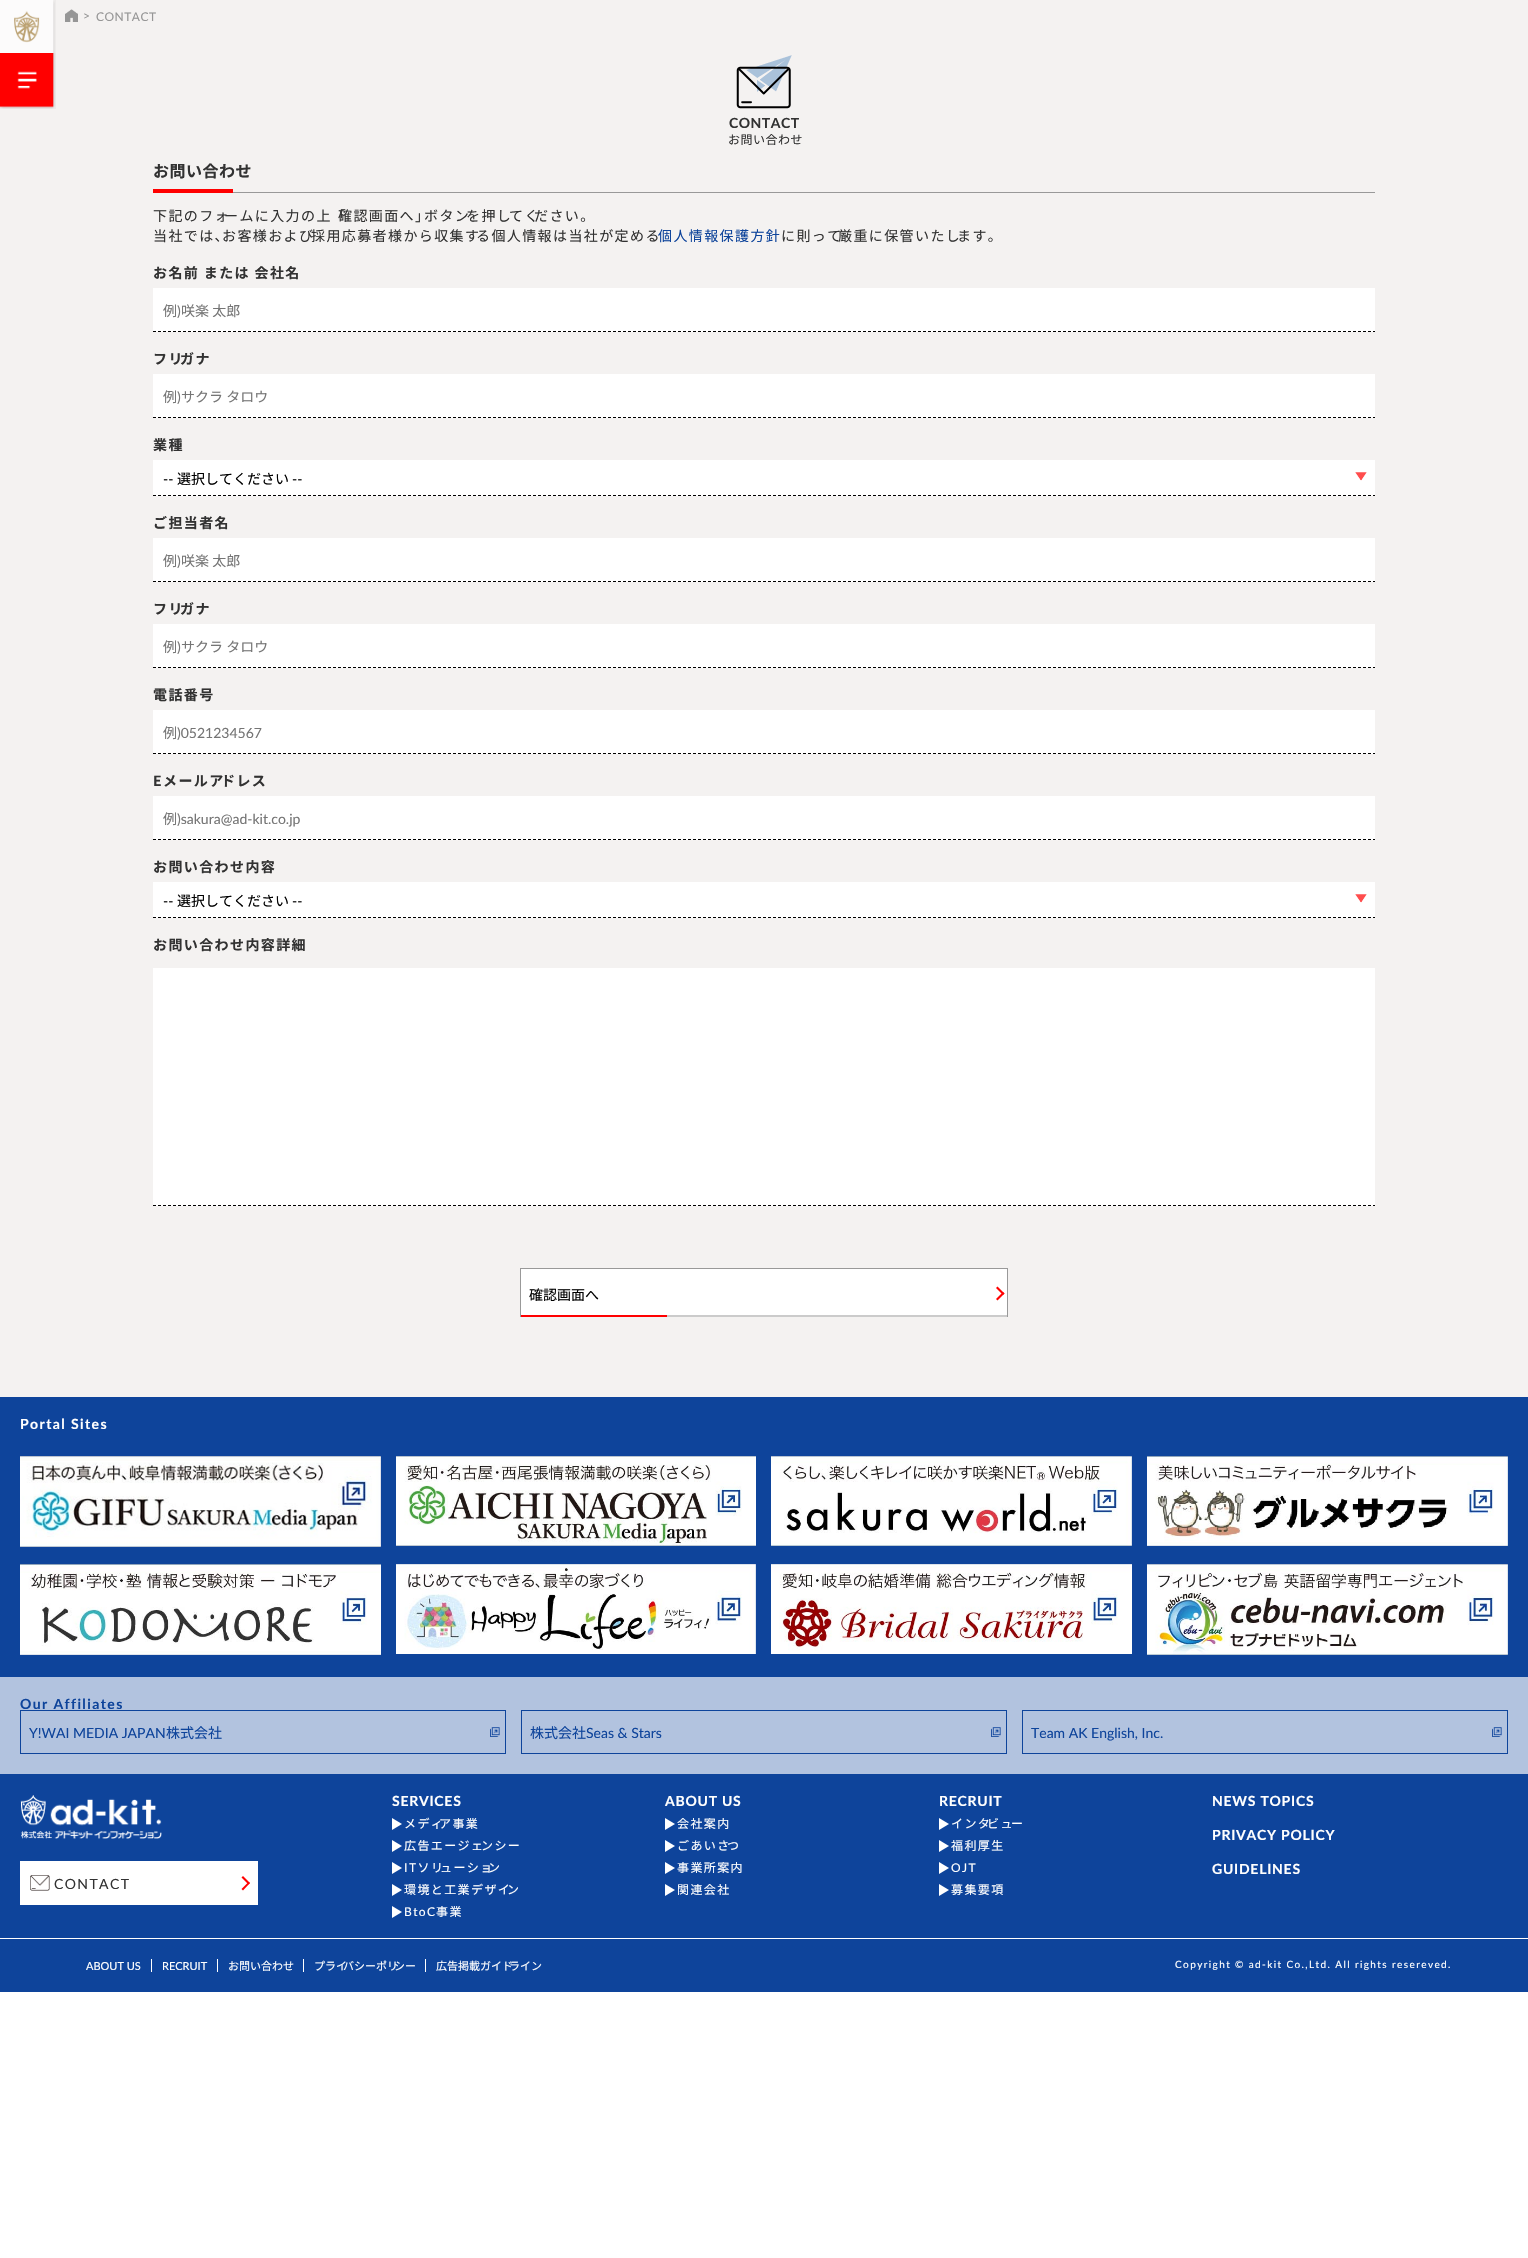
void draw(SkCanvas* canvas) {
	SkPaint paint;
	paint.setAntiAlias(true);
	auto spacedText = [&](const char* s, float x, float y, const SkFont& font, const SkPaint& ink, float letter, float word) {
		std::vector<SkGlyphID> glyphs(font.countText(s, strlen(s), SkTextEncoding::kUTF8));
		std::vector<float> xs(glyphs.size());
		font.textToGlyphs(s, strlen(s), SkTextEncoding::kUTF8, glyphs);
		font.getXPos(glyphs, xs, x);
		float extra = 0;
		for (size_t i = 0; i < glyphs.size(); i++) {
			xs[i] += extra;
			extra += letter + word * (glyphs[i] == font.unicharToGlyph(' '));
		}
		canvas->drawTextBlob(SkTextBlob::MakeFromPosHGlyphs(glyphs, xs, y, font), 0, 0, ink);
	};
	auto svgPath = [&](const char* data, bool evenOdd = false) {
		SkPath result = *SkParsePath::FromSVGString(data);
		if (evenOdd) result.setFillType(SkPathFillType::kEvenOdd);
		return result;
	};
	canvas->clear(0xffffffff);
	paint.setColor(0xfff4f2f1);
	canvas->drawRect(SkRect::MakeXYWH(0, 0, 1528, 1397), paint);
	canvas->drawImageRect(SkImages::DeferredFromEncodedData(SkData::MakeFromFileName("img1.png")), SkRect::MakeXYWH(0, 0, 56, 53), SkSamplingOptions());
	canvas->drawImageRect(SkImages::DeferredFromEncodedData(SkData::MakeFromFileName("img2.png")), SkRect::MakeXYWH(0, 53, 56, 56), SkSamplingOptions());
	canvas->drawImageRect(SkImages::DeferredFromEncodedData(SkData::MakeFromFileName("img3.png")), SkRect::MakeXYWH(65, 9, 13, 13), SkSamplingOptions());
	SkFont f1(fontMgr->matchFamilyStyle("Lato", SkFontStyle::Normal()), 12);
	f1.setSubpixel(true);
	paint.setColor(0xff969696);
	spacedText(">", 83, 20, f1, paint, 0.5, 0);
	spacedText("CONTACT", 96, 21, f1, paint, 0.5, 0);
	canvas->drawImageRect(SkImages::DeferredFromEncodedData(SkData::MakeFromFileName("img4.png")), SkRect::MakeXYWH(736, 55, 56, 54), SkSamplingOptions());
	SkFont f2(fontMgr->matchFamilyStyle("Lato", SkFontStyle::Bold()), 14);
	f2.setSubpixel(true);
	paint.setColor(0xff323232);
	spacedText("CONTACT", 729, 128, f2, paint, 0.5, 0);
	SkFont f3(fontMgr->matchFamilyStyle("Noto Sans JP", SkFontStyle::Normal()), 12);
	f3.setSubpixel(true);
	spacedText("お問い合わせ", 728, 144, f3, paint, 0.5, 0);
	paint.setColor(0xff999999);
	canvas->drawRect(SkRect::MakeXYWH(233, 192, 1142, 1), paint);
	SkFont f4(fontMgr->matchFamilyStyle("Noto Sans JP", SkFontStyle::Bold()), 16);
	f4.setSubpixel(true);
	paint.setColor(0xff323232);
	spacedText("お問い合わせ", 153, 177, f4, paint, 0.5, 0);
	paint.setColor(0xffff0000);
	canvas->drawRect(SkRect::MakeXYWH(153, 189, 80, 4), paint);
	SkFont f5(fontMgr->matchFamilyStyle("Noto Sans JP", SkFontStyle::Normal()), 14);
	f5.setSubpixel(true);
	paint.setColor(0xff323232);
	spacedText("下記のフォ", 153, 221, f5, paint, 1.4, 0);
	spacedText("ームに入力の上「", 224, 221, f5, paint, 1.4, 0);
	spacedText("確認画面へ」", 338, 221, f5, paint, 1.4, 0);
	spacedText("ボタン", 424, 221, f5, paint, 1.4, 0);
	spacedText("を押し", 466, 221, f5, paint, 1.4, 0);
	spacedText("てく", 509, 221, f5, paint, 1.4, 0);
	spacedText("ださい。", 534, 221, f5, paint, 1.4, 0);
	spacedText("当社では、", 153, 241, f5, paint, 1.4, 0);
	spacedText("お客様および", 222, 241, f5, paint, 1.4, 0);
	spacedText("採用応募者様から収集す", 311, 241, f5, paint, 1.4, 0);
	spacedText("る個人情報は当社が定める", 476, 241, f5, paint, 1.4, 0);
	paint.setColor(0xff0e449b);
	spacedText("個人情報保護方針", 658, 241, f5, paint, 1.4, 0);
	paint.setColor(0xff323232);
	spacedText("に則って", 781, 241, f5, paint, 1.4, 0);
	spacedText("厳重に保管いたし", 838, 241, f5, paint, 1.4, 0);
	spacedText("ます。", 957, 241, f5, paint, 1.4, 0);
	SkFont f6(fontMgr->matchFamilyStyle("Noto Sans JP", SkFontStyle::Bold()), 14);
	f6.setSubpixel(true);
	spacedText("お名前 または 会社名", 153, 278, f6, paint, 1.4, 0);
	paint.setColor(0xffffffff);
	canvas->drawRect(SkRect::MakeXYWH(153, 288, 1222, 44), paint);
	paint.setStroke(true);
	paint.setStrokeWidth(1);
	paint.setColor(0xff000000);
	paint.setPathEffect(SkDashPathEffect::Make({{3, 2}}, 0));
	canvas->drawPath(svgPath("M153 331.5H1375"), paint);
	paint.setPathEffect(nullptr);
	paint.setStroke(false);
	paint.setColor(0xff757575);
	canvas->drawString("例", 163, 316, f5, paint);
	SkFont f7(fontMgr->matchFamilyStyle("Lato", SkFontStyle::Normal()), 14);
	f7.setSubpixel(true);
	canvas->drawString(")", 177, 316, f7, paint);
	canvas->drawString("咲楽 太郎", 181, 316, f5, paint);
	paint.setColor(0xff323232);
	spacedText("フリ", 153, 364, f6, paint, 1.4, 0);
	spacedText("ガナ", 180, 364, f6, paint, 1.4, 0);
	paint.setColor(0xffffffff);
	canvas->drawRect(SkRect::MakeXYWH(153, 374, 1222, 44), paint);
	paint.setStroke(true);
	paint.setColor(0xff000000);
	paint.setPathEffect(SkDashPathEffect::Make({{3, 2}}, 0));
	canvas->drawPath(svgPath("M153 417.5H1375"), paint);
	paint.setPathEffect(nullptr);
	paint.setStroke(false);
	paint.setColor(0xff757575);
	canvas->drawString("例", 163, 402, f5, paint);
	canvas->drawString(")", 177, 402, f7, paint);
	canvas->drawString("サクラ タロウ", 181, 402, f5, paint);
	paint.setColor(0xff323232);
	spacedText("業種", 153, 450, f6, paint, 1.4, 0);
	paint.setColor(0xffffffff);
	canvas->drawRect(SkRect::MakeXYWH(153, 460, 1222, 36), paint);
	canvas->drawImageRect(SkImages::DeferredFromEncodedData(SkData::MakeFromFileName("img5.png")), SkRect::MakeXYWH(1355, 472, 12, 9), SkSamplingOptions());
	paint.setStroke(true);
	paint.setColor(0xff000000);
	paint.setPathEffect(SkDashPathEffect::Make({{3, 2}}, 0));
	canvas->drawPath(svgPath("M153 495.5H1375"), paint);
	paint.setPathEffect(nullptr);
	paint.setStroke(false);
	canvas->drawString("--", 163, 484, f7, paint);
	canvas->drawString("選択してください", 177, 484, f5, paint);
	canvas->drawString("--", 292, 484, f7, paint);
	paint.setColor(0xff323232);
	spacedText("ご担当者名", 153, 528, f6, paint, 1.4, 0);
	paint.setColor(0xffffffff);
	canvas->drawRect(SkRect::MakeXYWH(153, 538, 1222, 44), paint);
	paint.setStroke(true);
	paint.setColor(0xff000000);
	paint.setPathEffect(SkDashPathEffect::Make({{3, 2}}, 0));
	canvas->drawPath(svgPath("M153 581.5H1375"), paint);
	paint.setPathEffect(nullptr);
	paint.setStroke(false);
	paint.setColor(0xff757575);
	canvas->drawString("例", 163, 566, f5, paint);
	canvas->drawString(")", 177, 566, f7, paint);
	canvas->drawString("咲楽 太郎", 181, 566, f5, paint);
	paint.setColor(0xff323232);
	spacedText("フリ", 153, 614, f6, paint, 1.4, 0);
	spacedText("ガナ", 180, 614, f6, paint, 1.4, 0);
	paint.setColor(0xffffffff);
	canvas->drawRect(SkRect::MakeXYWH(153, 624, 1222, 44), paint);
	paint.setStroke(true);
	paint.setColor(0xff000000);
	paint.setPathEffect(SkDashPathEffect::Make({{3, 2}}, 0));
	canvas->drawPath(svgPath("M153 667.5H1375"), paint);
	paint.setPathEffect(nullptr);
	paint.setStroke(false);
	paint.setColor(0xff757575);
	canvas->drawString("例", 163, 652, f5, paint);
	canvas->drawString(")", 177, 652, f7, paint);
	canvas->drawString("サクラ タロウ", 181, 652, f5, paint);
	paint.setColor(0xff323232);
	spacedText("電話番号", 153, 700, f6, paint, 1.4, 0);
	paint.setColor(0xffffffff);
	canvas->drawRect(SkRect::MakeXYWH(153, 710, 1222, 44), paint);
	paint.setStroke(true);
	paint.setColor(0xff000000);
	paint.setPathEffect(SkDashPathEffect::Make({{3, 2}}, 0));
	canvas->drawPath(svgPath("M153 753.5H1375"), paint);
	paint.setPathEffect(nullptr);
	paint.setStroke(false);
	paint.setColor(0xff757575);
	canvas->drawString("例", 163, 738, f5, paint);
	canvas->drawString(")0521234567", 177, 738, f7, paint);
	paint.setColor(0xff323232);
	spacedText("Eメールア", 153, 786, f6, paint, 1.4, 0);
	spacedText("ドレス", 221, 786, f6, paint, 1.4, 0);
	paint.setColor(0xffffffff);
	canvas->drawRect(SkRect::MakeXYWH(153, 796, 1222, 44), paint);
	paint.setStroke(true);
	paint.setColor(0xff000000);
	paint.setPathEffect(SkDashPathEffect::Make({{3, 2}}, 0));
	canvas->drawPath(svgPath("M153 839.5H1375"), paint);
	paint.setPathEffect(nullptr);
	paint.setStroke(false);
	paint.setColor(0xff757575);
	canvas->drawString("例", 163, 824, f5, paint);
	canvas->drawString(")sakura@ad-kit.co.jp", 177, 824, f7, paint);
	paint.setColor(0xff323232);
	spacedText("お問い合わせ内容", 153, 872, f6, paint, 1.4, 0);
	paint.setColor(0xffffffff);
	canvas->drawRect(SkRect::MakeXYWH(153, 882, 1222, 36), paint);
	canvas->drawImageRect(SkImages::DeferredFromEncodedData(SkData::MakeFromFileName("img5.png")), SkRect::MakeXYWH(1355, 894, 12, 9), SkSamplingOptions());
	paint.setStroke(true);
	paint.setColor(0xff000000);
	paint.setPathEffect(SkDashPathEffect::Make({{3, 2}}, 0));
	canvas->drawPath(svgPath("M153 917.5H1375"), paint);
	paint.setPathEffect(nullptr);
	paint.setStroke(false);
	canvas->drawString("--", 163, 906, f7, paint);
	canvas->drawString("選択してください", 177, 906, f5, paint);
	canvas->drawString("--", 292, 906, f7, paint);
	paint.setColor(0xff323232);
	spacedText("お問い合わせ内容詳細", 153, 950, f6, paint, 1.4, 0);
	paint.setColor(0xffffffff);
	canvas->drawRect(SkRect::MakeXYWH(153, 968, 1222, 238), paint);
	paint.setStroke(true);
	paint.setColor(0xff000000);
	paint.setPathEffect(SkDashPathEffect::Make({{3, 2}}, 0));
	canvas->drawPath(svgPath("M153 1205.5H1375"), paint);
	paint.setPathEffect(nullptr);
	paint.setStroke(false);
	paint.setColor(0xffffffff);
	canvas->drawRect(SkRect::MakeXYWH(521, 1269, 486, 46), paint);
	paint.setColor(0xff999999);
	canvas->drawRect(SkRect::MakeXYWH(520, 1268, 488, 1), paint);
	canvas->drawRect(SkRect::MakeXYWH(1007, 1268, 1, 49), paint);
	canvas->drawRect(SkRect::MakeXYWH(520, 1268, 1, 49), paint);
	paint.setColor(0xff000000);
	canvas->drawString("確認画面へ", 529, 1300, f5, paint);
	paint.setColor(0xffff0000);
	canvas->drawPath(svgPath("M997.5 1286.5L1004.5 1293.5L1003 1295L996 1288Z"), paint);
	canvas->drawPath(svgPath("M1003 1292L1004.5 1293.5L997.5 1300.5L996 1299Z"), paint);
	canvas->drawRect(SkRect::MakeXYWH(521, 1315, 146, 2), paint);
	paint.setColor(0xffcbcbcb);
	canvas->drawRect(SkRect::MakeXYWH(667, 1315, 340, 2), paint);
	paint.setColor(0xff0e449b);
	canvas->drawRect(SkRect::MakeXYWH(0, 1397, 1528, 595), paint);
	paint.setColor(0xffffffff);
	spacedText("Portal Sites", 20, 1429, f2, paint, 1.4, 0);
	canvas->drawImageRect(SkImages::DeferredFromEncodedData(SkData::MakeFromFileName("img6.png")), SkRect::MakeXYWH(20, 1456, 361, 91), SkSamplingOptions());
	canvas->drawImageRect(SkImages::DeferredFromEncodedData(SkData::MakeFromFileName("img7.png")), SkRect::MakeXYWH(396, 1456, 360, 90), SkSamplingOptions());
	canvas->drawImageRect(SkImages::DeferredFromEncodedData(SkData::MakeFromFileName("img8.png")), SkRect::MakeXYWH(771, 1456, 361, 90), SkSamplingOptions());
	canvas->drawImageRect(SkImages::DeferredFromEncodedData(SkData::MakeFromFileName("img9.png")), SkRect::MakeXYWH(1147, 1456, 361, 90), SkSamplingOptions());
	canvas->drawImageRect(SkImages::DeferredFromEncodedData(SkData::MakeFromFileName("img10.png")), SkRect::MakeXYWH(20, 1564, 361, 91), SkSamplingOptions());
	canvas->drawImageRect(SkImages::DeferredFromEncodedData(SkData::MakeFromFileName("img11.png")), SkRect::MakeXYWH(396, 1564, 360, 90), SkSamplingOptions());
	canvas->drawImageRect(SkImages::DeferredFromEncodedData(SkData::MakeFromFileName("img12.png")), SkRect::MakeXYWH(771, 1564, 361, 90), SkSamplingOptions());
	canvas->drawImageRect(SkImages::DeferredFromEncodedData(SkData::MakeFromFileName("img13.png")), SkRect::MakeXYWH(1147, 1564, 361, 91), SkSamplingOptions());
	paint.setColor(0xffb2c3df);
	canvas->drawRect(SkRect::MakeXYWH(0, 1677, 1528, 97), paint);
	paint.setColor(0xff0e449b);
	spacedText("Our Affiliates", 20, 1709, f2, paint, 1.4, 0);
	paint.setStroke(true);
	canvas->drawRect(SkRect::MakeXYWH(20.5, 1710.5, 485, 43), paint);
	paint.setStroke(false);
	canvas->drawString("Y!WAI MEDIA JAPAN", 29, 1738, f7, paint);
	canvas->drawString("株式会社", 166, 1738, f5, paint);
	canvas->drawImageRect(SkImages::DeferredFromEncodedData(SkData::MakeFromFileName("img14.png")), SkRect::MakeXYWH(490, 1727, 10, 10), SkSamplingOptions());
	paint.setStroke(true);
	canvas->drawRect(SkRect::MakeXYWH(521.5, 1710.5, 485, 43), paint);
	paint.setStroke(false);
	canvas->drawString("株式会社", 530, 1738, f5, paint);
	canvas->drawString("Seas & Stars", 586, 1738, f7, paint);
	canvas->drawImageRect(SkImages::DeferredFromEncodedData(SkData::MakeFromFileName("img14.png")), SkRect::MakeXYWH(991, 1727, 10, 10), SkSamplingOptions());
	paint.setStroke(true);
	canvas->drawRect(SkRect::MakeXYWH(1022.5, 1710.5, 485, 43), paint);
	paint.setStroke(false);
	canvas->drawString("Team AK English, Inc.", 1031, 1738, f7, paint);
	canvas->drawImageRect(SkImages::DeferredFromEncodedData(SkData::MakeFromFileName("img15.png")), SkRect::MakeXYWH(1492, 1727, 10, 10), SkSamplingOptions());
	paint.setColor(0xffffffff);
	canvas->drawRect(SkRect::MakeXYWH(0, 1938, 1528, 1), paint);
	canvas->drawImageRect(SkImages::DeferredFromEncodedData(SkData::MakeFromFileName("img16.png")), SkRect::MakeXYWH(20, 1795, 142, 44), SkSamplingOptions());
	canvas->drawRect(SkRect::MakeXYWH(20, 1861, 238, 44), paint);
	canvas->drawImageRect(SkImages::DeferredFromEncodedData(SkData::MakeFromFileName("img17.png")), SkRect::MakeXYWH(30, 1875, 20, 16), SkSamplingOptions());
	paint.setColor(0xff323232);
	spacedText("CONTACT", 54, 1889, f7, paint, 1.4, 0);
	paint.setColor(0xffff0000);
	canvas->drawPath(svgPath("M243 1876L250 1883L248.5 1884.5L241.5 1877.5Z"), paint);
	canvas->drawPath(svgPath("M248.5 1882L250 1883L243 1890.5L241.5 1889Z"), paint);
	paint.setColor(0xffffffff);
	spacedText("SERVICES", 392, 1806, f2, paint, 0.75, 0);
	canvas->drawPath(svgPath("M392 1830V1818L402 1824Z"), paint);
	spacedText("メディ", 404, 1828, f3, paint, 1.4, 0);
	spacedText("ア事業", 439, 1828, f3, paint, 1.4, 0);
	canvas->drawPath(svgPath("M392 1852V1840L402 1846Z"), paint);
	spacedText("広告エージェ", 404, 1850, f3, paint, 1.4, 0);
	spacedText("ンシー", 481, 1850, f3, paint, 1.4, 0);
	canvas->drawPath(svgPath("M392 1874V1862L402 1868Z"), paint);
	spacedText("ITソリ", 404, 1872, f3, paint, 1.4, 0);
	spacedText("ューショ", 440, 1872, f3, paint, 1.4, 0);
	spacedText("ン", 488, 1872, f3, paint, 1.4, 0);
	canvas->drawPath(svgPath("M392 1896V1884L402 1890Z"), paint);
	spacedText("環境と工業デザイ", 404, 1894, f3, paint, 1.4, 0);
	spacedText("ン", 507, 1894, f3, paint, 1.4, 0);
	canvas->drawPath(svgPath("M392 1918V1906L402 1912Z"), paint);
	spacedText("BtoC", 404, 1916, f1, paint, 1.4, 0);
	spacedText("事業", 436, 1916, f3, paint, 1.4, 0);
	spacedText("ABOUT US", 665, 1806, f2, paint, 0.75, 0);
	canvas->drawPath(svgPath("M665 1830V1818L675 1824Z"), paint);
	spacedText("会社案内", 677, 1828, f3, paint, 1.4, 0);
	canvas->drawPath(svgPath("M665 1852V1840L675 1846Z"), paint);
	spacedText("ごあいさ", 677, 1850, f3, paint, 1.4, 0);
	spacedText("つ", 727, 1850, f3, paint, 1.4, 0);
	canvas->drawPath(svgPath("M665 1874V1862L675 1868Z"), paint);
	spacedText("事業所案内", 677, 1872, f3, paint, 1.4, 0);
	canvas->drawPath(svgPath("M665 1896V1884L675 1890Z"), paint);
	spacedText("関連会社", 677, 1894, f3, paint, 1.4, 0);
	spacedText("RECRUIT", 939, 1806, f2, paint, 0.75, 0);
	canvas->drawPath(svgPath("M939 1830V1818L949 1824Z"), paint);
	spacedText("インタ", 951, 1828, f3, paint, 1.4, 0);
	spacedText("ビュ", 987, 1828, f3, paint, 1.4, 0);
	spacedText("ー", 1011, 1828, f3, paint, 1.4, 0);
	canvas->drawPath(svgPath("M939 1852V1840L949 1846Z"), paint);
	spacedText("福利厚生", 951, 1850, f3, paint, 1.4, 0);
	canvas->drawPath(svgPath("M939 1874V1862L949 1868Z"), paint);
	spacedText("OJT", 951, 1872, f1, paint, 1.4, 0);
	canvas->drawPath(svgPath("M939 1896V1884L949 1890Z"), paint);
	spacedText("募集要項", 951, 1894, f3, paint, 1.4, 0);
	spacedText("NEWS TOPICS", 1212, 1806, f2, paint, 0.75, 0);
	spacedText("PRIVACY POLICY", 1212, 1840, f2, paint, 0.75, 0);
	spacedText("GUIDELINES", 1212, 1874, f2, paint, 0.75, 0);
	canvas->drawRect(SkRect::MakeXYWH(151, 1959, 1, 13), paint);
	SkFont f8(fontMgr->matchFamilyStyle("Lato", SkFontStyle::Normal()), 11);
	f8.setSubpixel(true);
	canvas->drawString("ABOUT US", 86, 1970, f8, paint);
	canvas->drawRect(SkRect::MakeXYWH(217, 1959, 1, 13), paint);
	canvas->drawString("RECRUIT", 162, 1970, f8, paint);
	canvas->drawRect(SkRect::MakeXYWH(303, 1959, 1, 13), paint);
	SkFont f9(fontMgr->matchFamilyStyle("Noto Sans JP", SkFontStyle::Normal()), 11);
	f9.setSubpixel(true);
	canvas->drawString("お問い合わせ", 228, 1970, f9, paint);
	canvas->drawRect(SkRect::MakeXYWH(425, 1959, 1, 13), paint);
	canvas->drawString("プライ", 314, 1970, f9, paint);
	canvas->drawString("バシーポリ", 343, 1970, f9, paint);
	canvas->drawString("シー", 394, 1970, f9, paint);
	canvas->drawString("広告掲載ガイド", 436, 1970, f9, paint);
	canvas->drawString("ライン", 509, 1970, f9, paint);
	SkFont f10(fontMgr->matchFamilyStyle("Lato", SkFontStyle::Normal()), 10);
	f10.setSubpixel(true);
	spacedText("Copyright © ad-kit Co.,Ltd. All rights resereved.", 1175, 1968, f10, paint, 1.4, 0);
}
